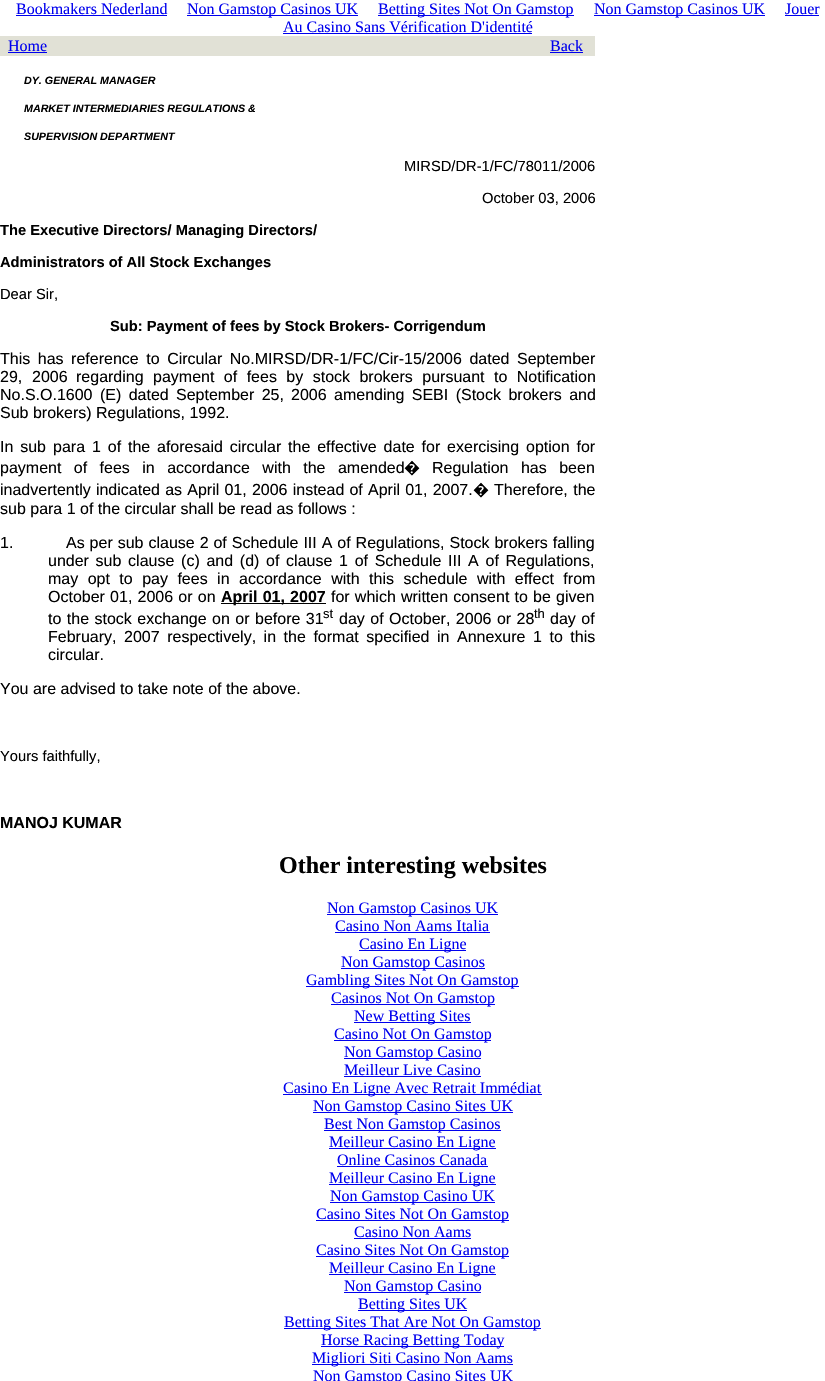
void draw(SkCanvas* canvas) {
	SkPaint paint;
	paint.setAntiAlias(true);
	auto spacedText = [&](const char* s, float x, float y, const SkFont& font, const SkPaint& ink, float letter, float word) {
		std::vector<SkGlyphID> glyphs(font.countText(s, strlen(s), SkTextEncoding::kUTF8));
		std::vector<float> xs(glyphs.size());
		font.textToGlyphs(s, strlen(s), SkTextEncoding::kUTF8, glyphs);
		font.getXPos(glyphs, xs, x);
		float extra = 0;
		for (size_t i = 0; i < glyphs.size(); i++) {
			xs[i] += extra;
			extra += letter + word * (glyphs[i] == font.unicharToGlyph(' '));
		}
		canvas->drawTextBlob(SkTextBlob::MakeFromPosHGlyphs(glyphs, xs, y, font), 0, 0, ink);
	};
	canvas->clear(0xffffffff);
	SkFont f1(fontMgr->matchFamilyStyle("Liberation Serif", SkFontStyle::Normal()), 16);
	f1.setSubpixel(true);
	paint.setColor(0xff0000ee);
	canvas->drawString("Bookmakers Nederland", 16, 14, f1, paint);
	canvas->drawRect(SkRect::MakeXYWH(16, 15, 151, 1), paint);
	canvas->drawRect(SkRect::MakeXYWH(187, 15, 171, 1), paint);
	canvas->drawString("Non Gamstop Casinos UK", 187, 14, f1, paint);
	canvas->drawRect(SkRect::MakeXYWH(378, 15, 196, 1), paint);
	canvas->drawString("Betting Sites Not On Gamstop", 378, 14, f1, paint);
	canvas->drawRect(SkRect::MakeXYWH(594, 15, 171, 1), paint);
	canvas->drawString("Non Gamstop Casinos UK", 594, 14, f1, paint);
	canvas->drawString("Jouer", 785, 14, f1, paint);
	canvas->drawRect(SkRect::MakeXYWH(785, 15, 34, 1), paint);
	canvas->drawString("Au Casino Sans Vérification D'identité", 283, 32, f1, paint);
	canvas->drawRect(SkRect::MakeXYWH(283, 33, 249, 1), paint);
	paint.setColor(0xffe1e1d6);
	canvas->drawRect(SkRect::MakeXYWH(0, 36, 595, 20), paint);
	paint.setColor(0xff0000ee);
	canvas->drawString("Home", 8, 51, f1, paint);
	canvas->drawRect(SkRect::MakeXYWH(8, 52, 39, 1), paint);
	canvas->drawString("Back", 550, 51, f1, paint);
	canvas->drawRect(SkRect::MakeXYWH(550, 52, 33, 1), paint);
	SkFont f2(fontMgr->matchFamilyStyle("Liberation Sans", SkFontStyle::BoldItalic()), 10.7);
	f2.setSubpixel(true);
	paint.setColor(0xff000000);
	canvas->drawString("DY. GENERAL MANAGER", 24, 84, f2, paint);
	canvas->drawString("MARKET INTERMEDIARIES REGULATIONS &", 24, 112, f2, paint);
	canvas->drawString("SUPERVISION DEPARTMENT", 24, 140, f2, paint);
	SkFont f3(fontMgr->matchFamilyStyle("Liberation Sans", SkFontStyle::Normal()), 14.7);
	f3.setSubpixel(true);
	canvas->drawString("MIRSD/DR-1/FC/78011/2006", 404, 171, f3, paint);
	canvas->drawString("October 03, 2006", 482, 203, f3, paint);
	SkFont f4(fontMgr->matchFamilyStyle("Liberation Sans", SkFontStyle::Bold()), 14.7);
	f4.setSubpixel(true);
	canvas->drawString("The Executive Directors/ Managing Directors/", 0, 235, f4, paint);
	canvas->drawString("Administrators of All Stock Exchanges", 0, 267, f4, paint);
	canvas->drawString("Dear Sir,", 0, 299, f3, paint);
	canvas->drawString("Sub: Payment of fees by Stock Brokers- Corrigendum", 110, 331, f4, paint);
	SkFont f5(fontMgr->matchFamilyStyle("Liberation Sans", SkFontStyle::Normal()), 16);
	f5.setSubpixel(true);
	spacedText("This has reference to Circular No.MIRSD/DR-1/FC/Cir-15/2006 dated", 0, 364, f5, paint, 0, 3.1);
	canvas->drawString("September", 517, 364, f5, paint);
	canvas->drawString("29,", 0, 382, f5, paint);
	canvas->drawString("2006", 32, 382, f5, paint);
	spacedText("regarding payment of fees by stock brokers pursuant to Notification", 76, 382, f5, paint, 0, 5);
	spacedText("No.S.O.1600 (E) dated", 0, 400, f5, paint, 0, 3);
	spacedText("September 25,", 176, 400, f5, paint, 0, 3);
	canvas->drawString("2006", 291, 400, f5, paint);
	spacedText("amending SEBI (Stock brokers and", 334, 400, f5, paint, 0, 3);
	canvas->drawString("Sub brokers) Regulations, 1992.", 0, 418, f5, paint);
	spacedText("In sub", 0, 452, f5, paint, 0, 2.4);
	canvas->drawString("para", 53, 452, f5, paint);
	spacedText("1 of the aforesaid circular the effective date for exercising option for", 92, 452, f5, paint, 0, 2.4);
	spacedText("payment of fees in accordance with the amended", 0, 473, f5, paint, 0, 8);
	SkFont f6(fontMgr->matchFamilyStyle("Noto Sans", SkFontStyle::Normal()), 16);
	f6.setSubpixel(true);
	canvas->drawString("�", 404, 473, f6, paint);
	spacedText("Regulation has been", 432, 473, f5, paint, 0, 8);
	spacedText("inadvertently indicated as April 01, 2006 instead of April 01, 2007.", 0, 495, f5, paint, 0, 0.75);
	canvas->drawString("�", 473, 495, f6, paint);
	spacedText("Therefore, the", 494, 495, f5, paint, 0, 1);
	canvas->drawString("sub para 1 of the circular shall be read as follows :", 0, 514, f5, paint);
	canvas->drawString("1.", 0, 548, f5, paint);
	spacedText("As per sub clause 2 of Schedule III A of Regulations, Stock brokers falling", 66, 548, f5, paint, 0, 0.5);
	spacedText("under sub clause (c) and (d) of clause 1 of Schedule III A of Regulations,", 48, 566, f5, paint, 0, 2.25);
	spacedText("may opt to pay fees in accordance with this schedule with effect from", 48, 584, f5, paint, 0, 5);
	spacedText("October 01, 2006 or on", 48, 602, f5, paint, 0, 0.75);
	canvas->drawRect(SkRect::MakeXYWH(221, 603, 105, 1), paint);
	SkFont f7(fontMgr->matchFamilyStyle("Liberation Sans", SkFontStyle::Bold()), 16);
	f7.setSubpixel(true);
	spacedText("April 01, 2007", 221, 602, f7, paint, 0, 0.75);
	spacedText("for which written consent to be given", 331, 602, f5, paint, 0, 0.75);
	spacedText("to the stock exchange on or before 31", 48, 624, f5, paint, 0, 1);
	SkFont f8(fontMgr->matchFamilyStyle("Liberation Sans", SkFontStyle::Normal()), 13);
	f8.setSubpixel(true);
	canvas->drawString("st", 323, 618, f8, paint);
	spacedText("day of October, 2006 or 28", 339, 624, f5, paint, 0, 1);
	canvas->drawString("th", 534, 618, f8, paint);
	spacedText("day of", 550, 624, f5, paint, 0, 1);
	spacedText("February, 2007 respectively, in the format specified in Annexure 1 to this", 48, 642, f5, paint, 0, 3.1);
	canvas->drawString("circular.", 48, 660, f5, paint);
	canvas->drawString("You are advised to take note of the above.", 0, 694, f5, paint);
	canvas->drawString("Yours faithfully,", 0, 761, f3, paint);
	canvas->drawString("MANOJ KUMAR", 0, 828, f7, paint);
	SkFont f9(fontMgr->matchFamilyStyle("Liberation Serif", SkFontStyle::Bold()), 24);
	f9.setSubpixel(true);
	canvas->drawString("Other interesting websites", 279, 873, f9, paint);
	paint.setColor(0xff0000ee);
	canvas->drawRect(SkRect::MakeXYWH(327, 914, 171, 1), paint);
	canvas->drawString("Non Gamstop Casinos UK", 327, 913, f1, paint);
	canvas->drawString("Casino Non Aams Italia", 335, 931, f1, paint);
	canvas->drawRect(SkRect::MakeXYWH(335, 932, 155, 1), paint);
	canvas->drawRect(SkRect::MakeXYWH(359, 950, 107, 1), paint);
	canvas->drawString("Casino En Ligne", 359, 949, f1, paint);
	canvas->drawRect(SkRect::MakeXYWH(341, 968, 144, 1), paint);
	canvas->drawString("Non Gamstop Casinos", 341, 967, f1, paint);
	canvas->drawRect(SkRect::MakeXYWH(306, 986, 213, 1), paint);
	canvas->drawString("Gambling Sites Not On Gamstop", 306, 985, f1, paint);
	canvas->drawRect(SkRect::MakeXYWH(331, 1004, 164, 1), paint);
	canvas->drawString("Casinos Not On Gamstop", 331, 1003, f1, paint);
	canvas->drawRect(SkRect::MakeXYWH(354, 1022, 117, 1), paint);
	canvas->drawString("New Betting Sites", 354, 1021, f1, paint);
	canvas->drawRect(SkRect::MakeXYWH(334, 1040, 157, 1), paint);
	canvas->drawString("Casino Not On Gamstop", 334, 1039, f1, paint);
	canvas->drawRect(SkRect::MakeXYWH(344, 1058, 137, 1), paint);
	canvas->drawString("Non Gamstop Casino", 344, 1057, f1, paint);
	canvas->drawString("Meilleur Live Casino", 344, 1075, f1, paint);
	canvas->drawRect(SkRect::MakeXYWH(344, 1076, 137, 1), paint);
	canvas->drawRect(SkRect::MakeXYWH(283, 1094, 259, 1), paint);
	canvas->drawString("Casino En Ligne Avec Retrait Immédiat", 283, 1093, f1, paint);
	canvas->drawRect(SkRect::MakeXYWH(313, 1112, 200, 1), paint);
	canvas->drawString("Non Gamstop Casino Sites UK", 313, 1111, f1, paint);
	canvas->drawRect(SkRect::MakeXYWH(324, 1130, 177, 1), paint);
	canvas->drawString("Best Non Gamstop Casinos", 324, 1129, f1, paint);
	canvas->drawRect(SkRect::MakeXYWH(329, 1148, 167, 1), paint);
	canvas->drawString("Meilleur Casino En Ligne", 329, 1147, f1, paint);
	canvas->drawString("Online Casinos Canada", 337, 1165, f1, paint);
	canvas->drawRect(SkRect::MakeXYWH(337, 1166, 151, 1), paint);
	canvas->drawRect(SkRect::MakeXYWH(329, 1184, 167, 1), paint);
	canvas->drawString("Meilleur Casino En Ligne", 329, 1183, f1, paint);
	canvas->drawRect(SkRect::MakeXYWH(330, 1202, 165, 1), paint);
	canvas->drawString("Non Gamstop Casino UK", 330, 1201, f1, paint);
	canvas->drawRect(SkRect::MakeXYWH(316, 1220, 193, 1), paint);
	canvas->drawString("Casino Sites Not On Gamstop", 316, 1219, f1, paint);
	canvas->drawString("Casino Non Aams", 354, 1237, f1, paint);
	canvas->drawRect(SkRect::MakeXYWH(354, 1238, 117, 1), paint);
	canvas->drawRect(SkRect::MakeXYWH(316, 1256, 193, 1), paint);
	canvas->drawString("Casino Sites Not On Gamstop", 316, 1255, f1, paint);
	canvas->drawRect(SkRect::MakeXYWH(329, 1274, 167, 1), paint);
	canvas->drawString("Meilleur Casino En Ligne", 329, 1273, f1, paint);
	canvas->drawRect(SkRect::MakeXYWH(344, 1292, 137, 1), paint);
	canvas->drawString("Non Gamstop Casino", 344, 1291, f1, paint);
	canvas->drawRect(SkRect::MakeXYWH(358, 1310, 109, 1), paint);
	canvas->drawString("Betting Sites UK", 358, 1309, f1, paint);
	canvas->drawRect(SkRect::MakeXYWH(284, 1328, 257, 1), paint);
	canvas->drawString("Betting Sites That Are Not On Gamstop", 284, 1327, f1, paint);
	canvas->drawRect(SkRect::MakeXYWH(321, 1346, 183, 1), paint);
	canvas->drawString("Horse Racing Betting Today", 321, 1345, f1, paint);
	canvas->drawRect(SkRect::MakeXYWH(312, 1364, 201, 1), paint);
	canvas->drawString("Migliori Siti Casino Non Aams", 312, 1363, f1, paint);
	canvas->drawString("Non Gamstop Casino Sites UK", 313, 1381, f1, paint);
}
